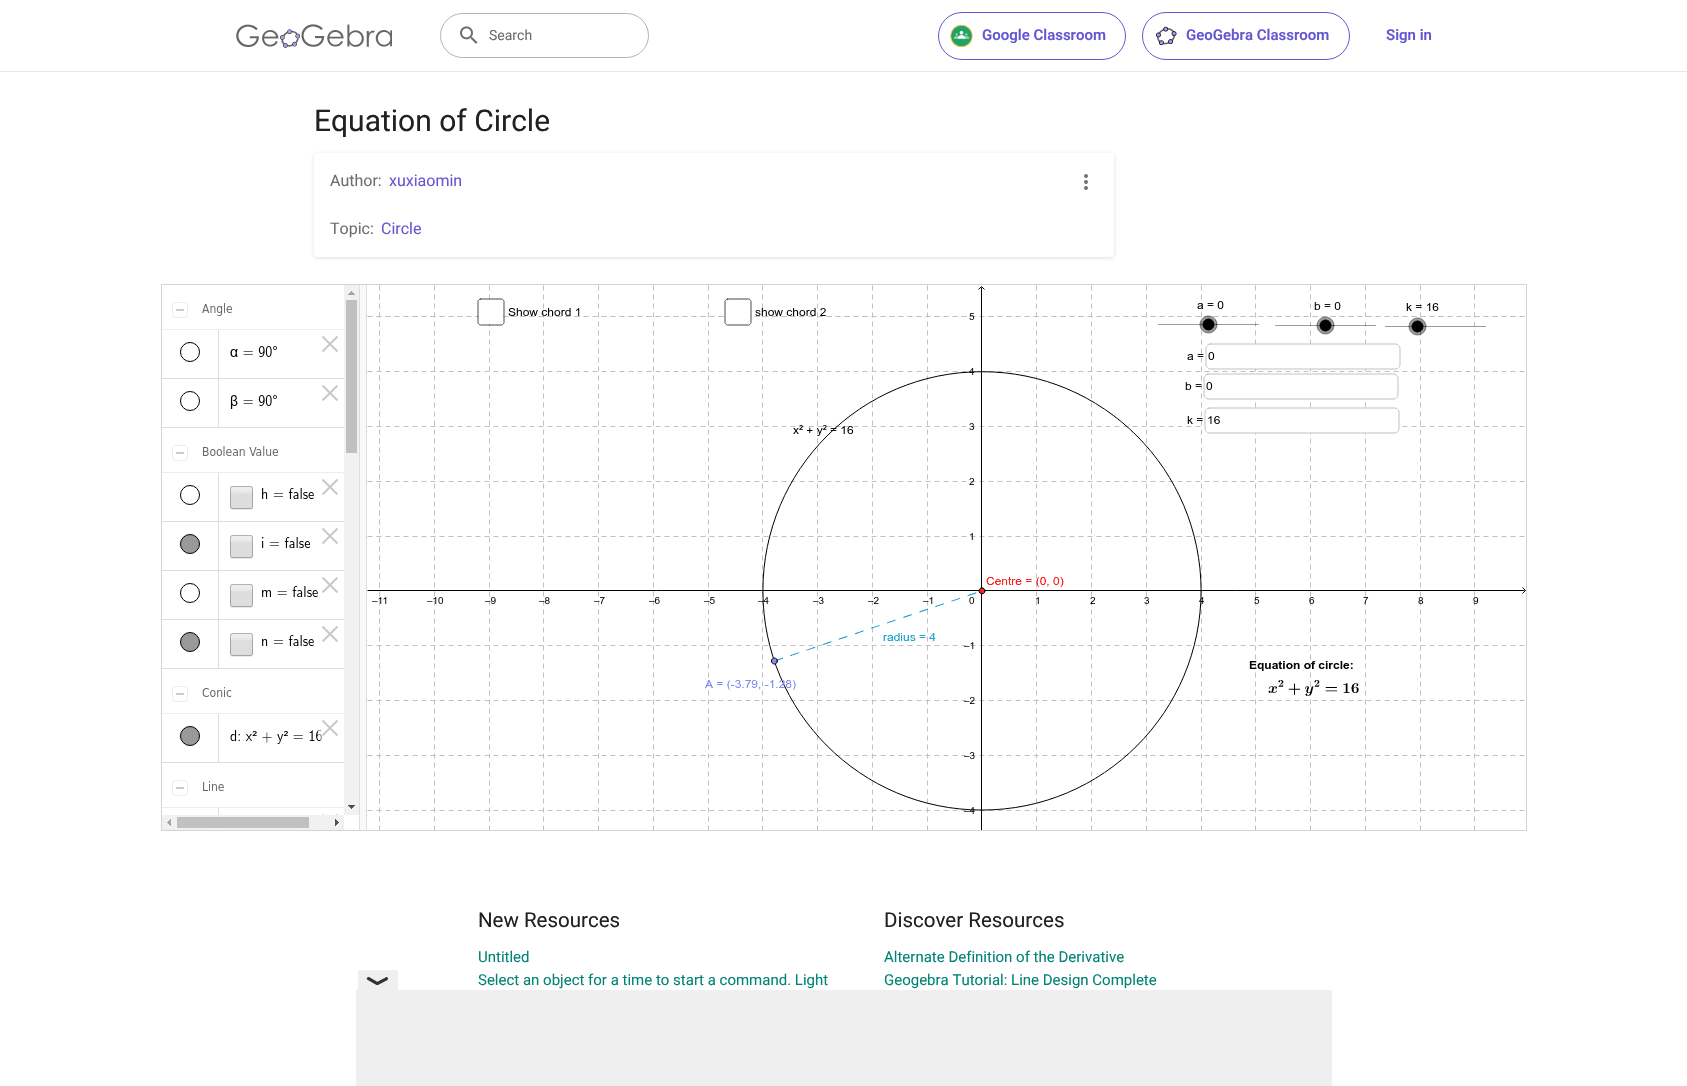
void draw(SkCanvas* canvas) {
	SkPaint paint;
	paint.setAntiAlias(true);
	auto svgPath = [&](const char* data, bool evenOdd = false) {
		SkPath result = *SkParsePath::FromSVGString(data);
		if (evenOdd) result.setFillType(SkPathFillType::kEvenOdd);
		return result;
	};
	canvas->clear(0xffffffff);
	paint.setColor(0xffe6e6eb);
	canvas->drawRect(SkRect::MakeXYWH(0, 71, 1687, 1), paint);
	canvas->drawImageRect(SkImages::DeferredFromEncodedData(SkData::MakeFromFileName("img1.png")), SkRect::MakeXYWH(236, 24, 156, 24), SkSamplingOptions());
	paint.setStroke(true);
	paint.setStrokeWidth(1);
	paint.setColor(0xffb4b3ba);
	canvas->drawRoundRect(SkRect::MakeXYWH(440.5, 13.5, 208, 44), 22, 22, paint);
	canvas->drawImageRect(SkImages::DeferredFromEncodedData(SkData::MakeFromFileName("img2.png")), SkRect::MakeXYWH(460, 26, 18, 18), SkSamplingOptions());
	SkFont f1(fontMgr->matchFamilyStyle("Roboto", SkFontStyle::Normal()), 14);
	f1.setSubpixel(true);
	paint.setStroke(false);
	paint.setColor(0xff6e6d73);
	canvas->drawString("Search", 489, 40, f1, paint);
	paint.setStroke(true);
	paint.setColor(0xff6557d2);
	canvas->drawRoundRect(SkRect::MakeXYWH(938.5, 12.5, 187, 47), 23.5, 23.5, paint);
	canvas->drawImageRect(SkImages::DeferredFromEncodedData(SkData::MakeFromFileName("img3.png")), SkRect::MakeXYWH(950, 24, 23, 24), SkSamplingOptions());
	SkFont f2(fontMgr->matchFamilyStyle("Roboto", SkFontStyle(600, SkFontStyle::kNormal_Width, SkFontStyle::kUpright_Slant)), 15);
	f2.setSubpixel(true);
	paint.setStroke(false);
	canvas->drawString("Google Classroom", 982, 40, f2, paint);
	paint.setStroke(true);
	canvas->drawRoundRect(SkRect::MakeXYWH(1142.5, 12.5, 207, 47), 23.5, 23.5, paint);
	canvas->drawImageRect(SkImages::DeferredFromEncodedData(SkData::MakeFromFileName("img4.png")), SkRect::MakeXYWH(1156, 26, 21, 20), SkSamplingOptions());
	paint.setStroke(false);
	canvas->drawString("GeoGebra Classroom", 1186, 40, f2, paint);
	canvas->drawString("Sign in", 1386, 40, f2, paint);
	SkFont f3(fontMgr->matchFamilyStyle("Roboto", SkFontStyle::Normal()), 30);
	f3.setSubpixel(true);
	paint.setColor(0xff212121);
	canvas->drawString("Equation of Circle", 314, 131, f3, paint);
	paint.setColor(0x241c1c1f);
	paint.setMaskFilter(SkMaskFilter::MakeBlur(kNormal_SkBlurStyle, 2));
	canvas->drawRoundRect(SkRect::MakeXYWH(314, 154, 800, 104), 4, 4, paint);
	paint.setMaskFilter(nullptr);
	paint.setColor(0xffffffff);
	canvas->drawRoundRect(SkRect::MakeXYWH(314, 153, 800, 104), 4, 4, paint);
	SkFont f4(fontMgr->matchFamilyStyle("Roboto", SkFontStyle::Normal()), 16);
	f4.setSubpixel(true);
	paint.setColor(0xff6e6d73);
	canvas->drawString("Author:", 330, 186, f4, paint);
	paint.setColor(0xff6557d2);
	canvas->drawString("xuxiaomin", 389, 186, f4, paint);
	paint.setColor(0xff6e6d73);
	canvas->drawString("Topic:", 330, 234, f4, paint);
	paint.setColor(0xff6557d2);
	canvas->drawString("Circle", 381, 234, f4, paint);
	canvas->drawImageRect(SkImages::DeferredFromEncodedData(SkData::MakeFromFileName("img5.png")), SkRect::MakeXYWH(1084, 174, 4, 16), SkSamplingOptions());
	canvas->drawImageRect(SkImages::DeferredFromEncodedData(SkData::MakeFromFileName("img6.png")), SkRect::MakeXYWH(162, 285, 1364, 545), SkSamplingOptions());
	paint.setStroke(true);
	paint.setColor(0xffd3d3d3);
	canvas->drawRect(SkRect::MakeXYWH(161.5, 284.5, 1365, 546), paint);
	SkFont f5(fontMgr->matchFamilyStyle("Roboto", SkFontStyle::Normal()), 20.5);
	f5.setSubpixel(true);
	paint.setStroke(false);
	paint.setColor(0xff212121);
	canvas->drawString("New Resources", 478, 927, f5, paint);
	SkFont f6(fontMgr->matchFamilyStyle("Roboto", SkFontStyle::Normal()), 15);
	f6.setSubpixel(true);
	paint.setColor(0xff008475);
	canvas->drawString("Untitled", 478, 962, f6, paint);
	canvas->drawString("Select an object for a time to start a command. Light", 478, 985, f6, paint);
	paint.setColor(0xff212121);
	canvas->drawString("Discover Resources", 884, 927, f5, paint);
	paint.setColor(0xff008475);
	canvas->drawString("Alternate Definition of the Derivative", 884, 962, f6, paint);
	canvas->drawString("Geogebra Tutorial: Line Design Complete", 884, 985, f6, paint);
	paint.setColor(0xffefefef);
	canvas->drawPath(svgPath("M360 970H396C397 970 398 971 398 972V990H358V972C358 971 359 970 360 970Z"), paint);
	paint.setColor(0xff313131);
	canvas->drawPath(svgPath("M369 977L378.5 982.5C379 984 377.5 985.5 376.5 985L367 979.5C366 978 368 976.5 369 977Z"), paint);
	canvas->drawPath(svgPath("M377 982L386.5 977C388 977 388.5 979 387.5 980L378 985C376.5 985 376 983 377 982Z"), paint);
	paint.setColor(0xffefefef);
	canvas->drawRect(SkRect::MakeXYWH(356, 990, 976, 96), paint);
}
